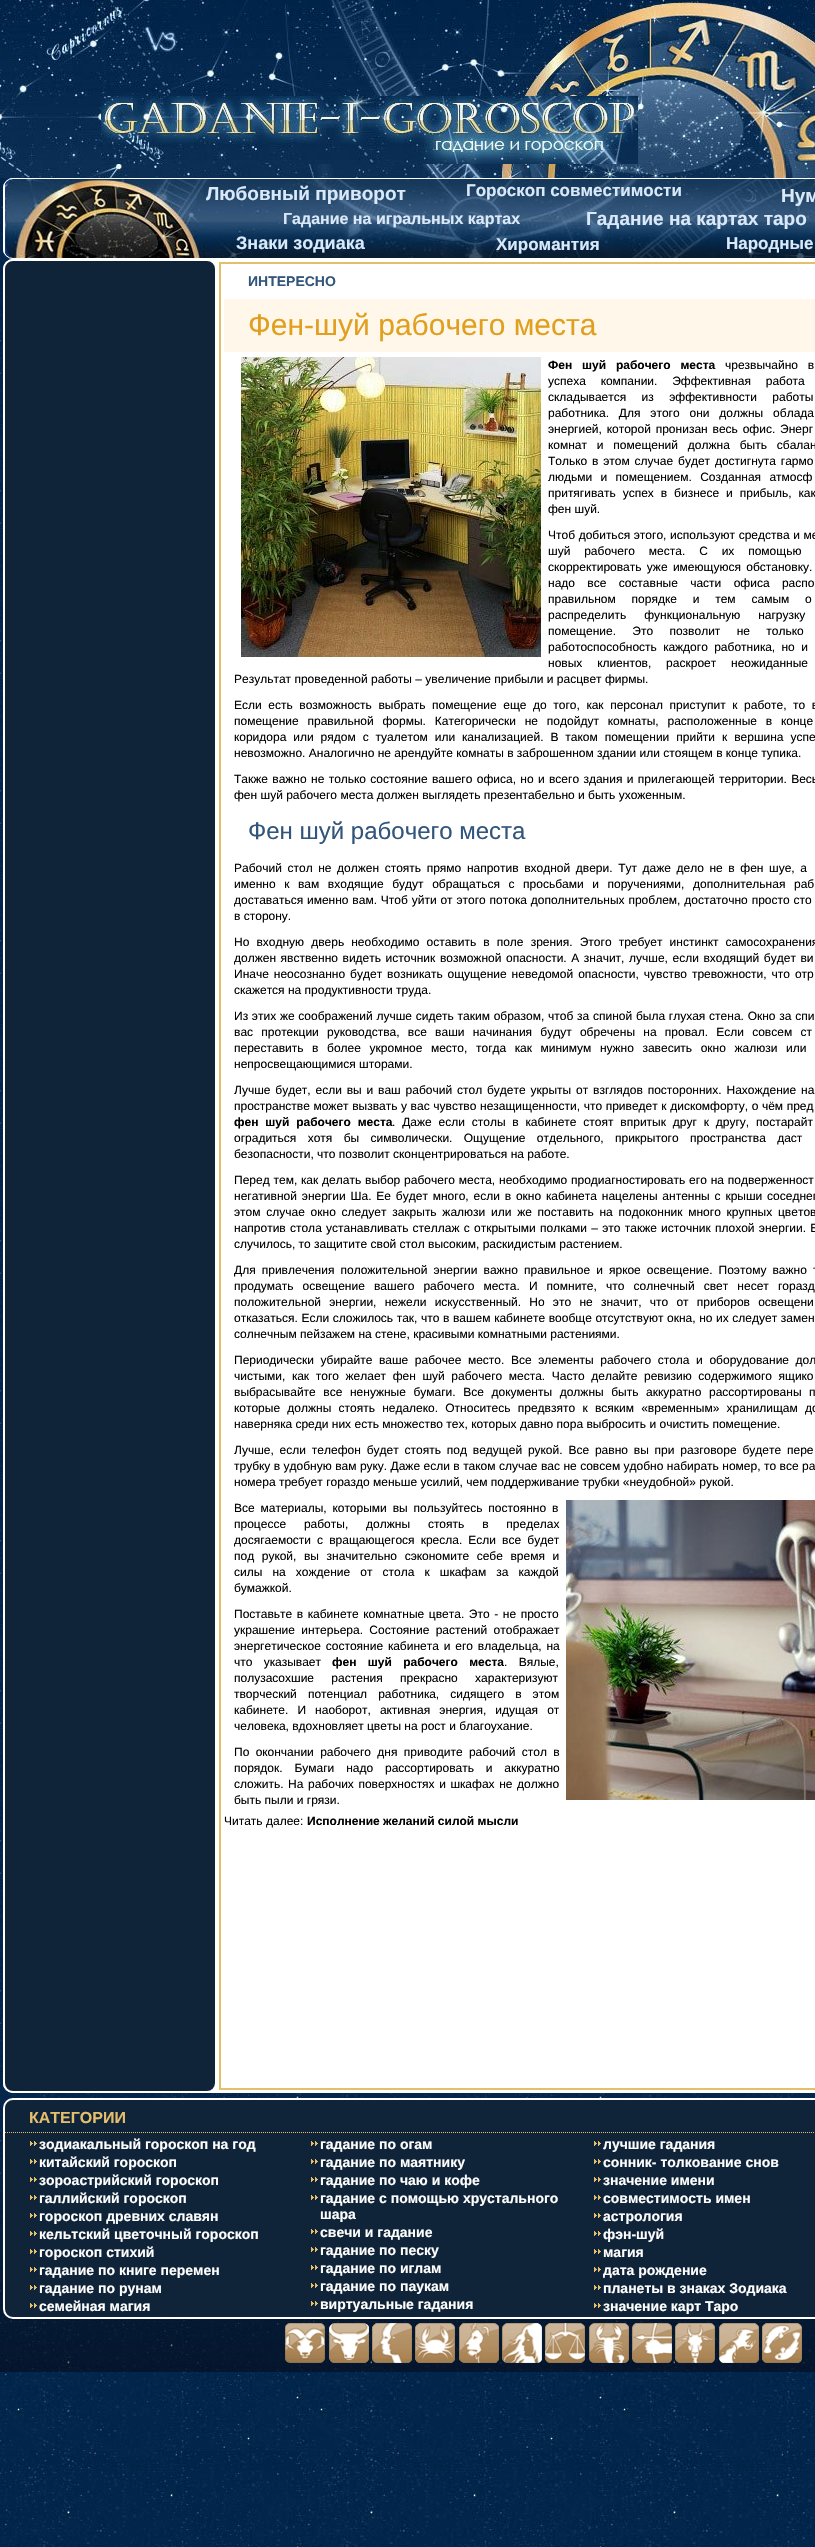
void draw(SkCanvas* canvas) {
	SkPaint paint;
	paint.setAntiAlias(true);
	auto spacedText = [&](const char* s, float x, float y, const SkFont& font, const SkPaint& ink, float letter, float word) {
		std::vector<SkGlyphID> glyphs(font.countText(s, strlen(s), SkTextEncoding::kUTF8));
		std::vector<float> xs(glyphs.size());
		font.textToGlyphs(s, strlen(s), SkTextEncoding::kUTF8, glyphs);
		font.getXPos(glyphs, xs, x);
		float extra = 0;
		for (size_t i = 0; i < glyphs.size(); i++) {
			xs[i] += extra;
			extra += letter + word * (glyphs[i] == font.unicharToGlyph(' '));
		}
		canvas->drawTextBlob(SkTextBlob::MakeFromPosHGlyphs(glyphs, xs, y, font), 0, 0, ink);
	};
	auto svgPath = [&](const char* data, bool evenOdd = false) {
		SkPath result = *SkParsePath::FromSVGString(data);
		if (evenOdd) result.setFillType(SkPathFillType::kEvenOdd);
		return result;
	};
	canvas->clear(0xffffffff);
	canvas->drawImageRect(SkImages::DeferredFromEncodedData(SkData::MakeFromFileName("img1.png")), SkRect::MakeXYWH(0, 275, 815, 2272), SkSamplingOptions());
	canvas->drawImageRect(SkImages::DeferredFromEncodedData(SkData::MakeFromFileName("img2.png")), SkRect::MakeXYWH(0, 0, 815, 275), SkSamplingOptions());
	canvas->drawImageRect(SkImages::DeferredFromEncodedData(SkData::MakeFromFileName("img3.png")), SkRect::MakeXYWH(0, 2045, 815, 327), SkSamplingOptions());
	canvas->drawImageRect(SkImages::DeferredFromEncodedData(SkData::MakeFromFileName("img4.png")), SkRect::MakeXYWH(101, 96, 537, 68), SkSamplingOptions());
	paint.setColor(0xffffffff);
	canvas->drawRoundRect(SkRect::MakeXYWH(3, 178, 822, 81), 10, 10, paint);
	canvas->drawImageRect(SkImages::DeferredFromEncodedData(SkData::MakeFromFileName("img5.png")), SkRect::MakeXYWH(5, 179, 810, 79), SkSamplingOptions());
	paint.setStroke(true);
	paint.setStrokeWidth(1);
	canvas->drawRoundRect(SkRect::MakeXYWH(3.5, 178.5, 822, 80), 9.5, 9.5, paint);
	SkFont f1(fontMgr->matchFamilyStyle("Liberation Sans", SkFontStyle::Bold()), 19);
	f1.setSubpixel(true);
	paint.setStroke(false);
	paint.setColor(0xffd9e9fa);
	canvas->drawString("Любовный приворот", 206, 200, f1, paint);
	SkFont f2(fontMgr->matchFamilyStyle("Liberation Sans", SkFontStyle::Bold()), 17);
	f2.setSubpixel(true);
	canvas->drawString("Гороскоп совместимости", 466, 196, f2, paint);
	canvas->drawString("Нум", 781, 202, f1, paint);
	SkFont f3(fontMgr->matchFamilyStyle("Liberation Sans", SkFontStyle::Bold()), 16);
	f3.setSubpixel(true);
	canvas->drawString("Гадание на игральных картах", 283, 224, f3, paint);
	canvas->drawString("Гадание на картах таро", 586, 225, f1, paint);
	SkFont f4(fontMgr->matchFamilyStyle("Liberation Sans", SkFontStyle::Bold()), 18);
	f4.setSubpixel(true);
	canvas->drawString("Знаки зодиака", 236, 249, f4, paint);
	canvas->drawString("Хиромантия", 496, 250, f2, paint);
	canvas->drawString("Народные", 726, 249, f2, paint);
	paint.setColor(0xffffffff);
	canvas->drawRoundRect(SkRect::MakeXYWH(3, 259, 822, 1834), 10, 10, paint);
	paint.setColor(0xff102439);
	canvas->drawRoundRect(SkRect::MakeXYWH(4, 260, 212, 1832), 9, 9, paint);
	paint.setStroke(true);
	paint.setStrokeWidth(2);
	paint.setColor(0xffffffff);
	canvas->drawRoundRect(SkRect::MakeXYWH(4, 260, 212, 1832), 9, 9, paint);
	paint.setColor(0xffe5be6b);
	canvas->drawRect(SkRect::MakeXYWH(220, 263, 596, 1826), paint);
	SkFont f5(fontMgr->matchFamilyStyle("Liberation Sans", SkFontStyle::Bold()), 14);
	f5.setSubpixel(true);
	paint.setStroke(false);
	paint.setColor(0xff31557b);
	canvas->drawString("ИНТЕРЕСНО", 248, 286, f5, paint);
	paint.setColor(0xfffff8ea);
	canvas->drawRect(SkRect::MakeXYWH(224, 299, 591, 53), paint);
	SkFont f6(fontMgr->matchFamilyStyle("Liberation Sans", SkFontStyle::Normal()), 30);
	f6.setSubpixel(true);
	paint.setColor(0xffe19f20);
	canvas->drawString("Фен-шуй рабочего места", 248, 335, f6, paint);
	canvas->drawImageRect(SkImages::DeferredFromEncodedData(SkData::MakeFromFileName("img6.png")), SkRect::MakeXYWH(241, 357, 300, 300), SkSamplingOptions());
	SkFont f7(fontMgr->matchFamilyStyle("Liberation Sans", SkFontStyle::Bold()), 12);
	f7.setSubpixel(true);
	paint.setColor(0xff000000);
	spacedText("Фен шуй рабочего места", 548, 369, f7, paint, 0, 6.5);
	SkFont f8(fontMgr->matchFamilyStyle("Liberation Sans", SkFontStyle::Normal()), 12);
	f8.setSubpixel(true);
	spacedText("чрезвычайно в", 725, 369, f8, paint, 0, 6.5);
	spacedText("успеха компании. Эффективная работа", 548, 385, f8, paint, 0, 11.5);
	spacedText("складывается из эффективности работы", 548, 401, f8, paint, 0, 12);
	spacedText("работника. Для этого они должны облада", 548, 417, f8, paint, 0, 6.5);
	spacedText("энергией, которой пронизан весь офис. Энерг", 548, 433, f8, paint, 0, 1.5);
	spacedText("комнат и помещений должна быть сбалан", 548, 449, f8, paint, 0, 6.5);
	spacedText("Только в этом случае будет достигнута гармо", 548, 465, f8, paint, 0, 1.5);
	spacedText("людьми и помещением. Созданная атмосф", 548, 481, f8, paint, 0, 5);
	spacedText("притягивать успех в бизнесе и прибыль, как", 548, 497, f8, paint, 0, 3.6);
	canvas->drawString("фен шуй.", 548, 513, f8, paint);
	spacedText("Чтоб добиться этого, используют средства и ме", 548, 539, f8, paint, 0, 0.25);
	spacedText("шуй рабочего места. С их помощью", 548, 555, f8, paint, 0, 10.5);
	spacedText("скорректировать уже имеющуюся обстановку.", 548, 571, f8, paint, 0, 2);
	spacedText("надо все составные части офиса распо", 548, 587, f8, paint, 0, 9);
	spacedText("правильном порядке и тем самым о", 548, 603, f8, paint, 0, 12.5);
	spacedText("распределить функциональную нагрузку", 548, 619, f8, paint, 0, 14.5);
	spacedText("помещение. Это позволит не только", 548, 635, f8, paint, 0, 13);
	spacedText("работоспособность каждого работника, но и", 548, 651, f8, paint, 0, 3);
	spacedText("новых клиентов, раскроет неожиданные", 548, 667, f8, paint, 0, 11.5);
	canvas->drawString("Результат проведенной работы – увеличение прибыли и расцвет фирмы.", 234, 683, f8, paint);
	spacedText("Если есть возможность выбрать помещение еще до того, как персонал приступит к работе, то в", 234, 709, f8, paint, 0, 3.25);
	spacedText("помещение правильной формы. Категорически не подойдут комнаты, расположенные в конце", 234, 725, f8, paint, 0, 5.5);
	spacedText("коридора или рядом с туалетом или канализацией. В таком помещении прийти к вершина успе", 234, 741, f8, paint, 0, 3.6);
	canvas->drawString("невозможно. Аналогично не арендуйте комнаты в заброшенном здании или стоящем в конце тупика.", 234, 757, f8, paint);
	spacedText("Также важно не только состояние вашего офиса, но и всего здания и прилегающей территории. Весь", 234, 783, f8, paint, 0, 1);
	canvas->drawString("фен шуй рабочего места должен выглядеть презентабельно и быть ухоженным.", 234, 799, f8, paint);
	SkFont f9(fontMgr->matchFamilyStyle("Liberation Sans", SkFontStyle::Normal()), 24);
	f9.setSubpixel(true);
	paint.setColor(0xff31557b);
	canvas->drawString("Фен шуй рабочего места", 248, 839, f9, paint);
	paint.setColor(0xff000000);
	spacedText("Рабочий стол не должен стоять прямо напротив входной двери. Тут даже дело не в фен шуе, а", 234, 872, f8, paint, 0, 2.25);
	spacedText("именно к вам входящие будут обращаться с просьбами и поручениями, дополнительная раб", 234, 888, f8, paint, 0, 5.25);
	spacedText("доставаться именно вам. Чтоб уйти от этого потока дополнительных проблем, достаточно просто сто", 234, 904, f8, paint, 0, 0.5);
	canvas->drawString("в сторону.", 234, 920, f8, paint);
	spacedText("Но входную дверь необходимо оставить в поле зрения. Этого требует инстинкт самосохранения", 234, 946, f8, paint, 0, 3.75);
	spacedText("должен явственно видеть источник возможной опасности. А значит, лучше, если входящий будет ви", 234, 962, f8, paint, 0, 1.25);
	spacedText("Иначе неосознанно будет возникать ощущение неведомой опасности, чувство тревожности, что отр", 234, 978, f8, paint, 0, 1.6);
	canvas->drawString("скажется на продуктивности труда.", 234, 994, f8, paint);
	spacedText("Из этих же соображений лучше сидеть таким образом, чтоб за спиной была глухая стена. Окно за спи", 234, 1020, f8, paint, 0, 0.4);
	spacedText("вас протекции руководства, все ваши начинания будут обречены на провал. Если совсем ст", 234, 1036, f8, paint, 0, 4.9);
	spacedText("переставить в более укромное место, тогда как минимум нужно завесить окно жалюзи или", 234, 1052, f8, paint, 0, 5.25);
	canvas->drawString("непросвещающимися шторами.", 234, 1068, f8, paint);
	spacedText("Лучше будет, если вы и ваш рабочий стол будете укрыты от взглядов посторонних. Нахождение на", 234, 1094, f8, paint, 0, 1.5);
	spacedText("пространстве может вызвать у вас чувство незащищенности, что приведет к дискомфорту, о чём пред", 234, 1110, f8, paint, 0, 0.25);
	spacedText("фен шуй рабочего места", 234, 1126, f7, paint, 0, 3.5);
	spacedText(". Даже если столы в кабинете стоят впритык друг к другу, постарайт", 392, 1126, f8, paint, 0, 3.5);
	spacedText("оградиться хотя бы символически. Ощущение отдельного, прикрытого пространства даст", 234, 1142, f8, paint, 0, 8);
	canvas->drawString("безопасности, что позволит сконцентрироваться на работе.", 234, 1158, f8, paint);
	spacedText("Перед тем, как делать выбор рабочего места, необходимо продиагностировать его на подверженност", 234, 1184, f8, paint, 0, 0.5);
	spacedText("негативной энергии Ша. Ее будет много, если в окно кабинета нацелены антенны с крыши соседнег", 234, 1200, f8, paint, 0, 1.5);
	spacedText("этом случае окно следует закрыть жалюзи или же поставить на подоконник много крупных цветов", 234, 1216, f8, paint, 0, 2.4);
	spacedText("напротив стола устанавливать стеллаж с открытыми полками – это также источник плохой энергии. Е", 234, 1232, f8, paint, 0, 0.9);
	canvas->drawString("случилось, то защитите свой стол высоким, раскидистым растением.", 234, 1248, f8, paint);
	spacedText("Для привлечения положительной энергии важно правильное и яркое освещение. Поэтому важно т", 234, 1274, f8, paint, 0, 2.75);
	spacedText("продумать освещение вашего рабочего места. И помните, что солнечный свет несет горазд", 234, 1290, f8, paint, 0, 5.75);
	spacedText("положительной энергии, нежели искусственный. Но это не значит, что от приборов освещени", 234, 1306, f8, paint, 0, 4.9);
	spacedText("отказаться. Если сложилось так, что в вашем кабинете вообще отсутствуют окна, но их следует замен", 234, 1322, f8, paint, 0, 0.25);
	canvas->drawString("солнечным пейзажем на стене, красивыми комнатными растениями.", 234, 1338, f8, paint);
	spacedText("Периодически убирайте ваше рабочее место. Все элементы рабочего стола и оборудование дол", 234, 1364, f8, paint, 0, 3.25);
	spacedText("чистыми, как того желает фен шуй рабочего места. Часто делайте ревизию содержимого ящико", 234, 1380, f8, paint, 0, 3.25);
	spacedText("выбрасывайте все ненужные бумаги. Все документы должны быть аккуратно рассортированы п", 234, 1396, f8, paint, 0, 4.25);
	spacedText("которые должны стоять недалеко. Относитесь предвзято к всяким «временным» хранилищам до", 234, 1412, f8, paint, 0, 3.9);
	canvas->drawString("наверняка среди них есть множество тех, которых давно пора выбросить и очистить помещение.", 234, 1428, f8, paint);
	spacedText("Лучше, если телефон будет стоять под ведущей рукой. Все равно вы при разговоре будете пере", 234, 1454, f8, paint, 0, 2.5);
	spacedText("трубку в удобную вам руку. Даже если в таком случае вас не совсем удобно набирать номер, то все ра", 234, 1470, f8, paint, 0, 0.1);
	canvas->drawString("номера требует гораздо меньше усилий, чем поддерживание трубки «неудобной» рукой.", 234, 1486, f8, paint);
	spacedText("Все материалы, которыми вы пользуйтесь постоянно в", 234, 1512, f8, paint, 0, 2.5);
	canvas->drawImageRect(SkImages::DeferredFromEncodedData(SkData::MakeFromFileName("img7.png")), SkRect::MakeXYWH(566, 1500, 249, 300), SkSamplingOptions());
	spacedText("процессе работы, должны стоять в пределах", 234, 1528, f8, paint, 0, 14.5);
	spacedText("досягаемости с вращающегося кресла. Если все будет", 234, 1544, f8, paint, 0, 2.75);
	spacedText("под рукой, вы значительно сэкономите себе время и", 234, 1560, f8, paint, 0, 4.25);
	spacedText("силы на хождение от стола к шкафам за каждой", 234, 1576, f8, paint, 0, 6.75);
	canvas->drawString("бумажкой.", 234, 1592, f8, paint);
	spacedText("Поставьте в кабинете комнатные цвета. Это - не просто", 234, 1618, f8, paint, 0, 1.25);
	spacedText("украшение интерьера. Состояние растений отображает", 234, 1634, f8, paint, 0, 3);
	spacedText("энергетическое состояние кабинета и его владельца, на", 234, 1650, f8, paint, 0, 1.5);
	spacedText("что указывает", 234, 1666, f8, paint, 0, 8);
	spacedText("фен шуй рабочего места", 332, 1666, f7, paint, 0, 8);
	spacedText(". Вялые,", 504, 1666, f8, paint, 0, 8);
	spacedText("полузасохшие растения прекрасно характеризуют", 234, 1682, f8, paint, 0, 14);
	spacedText("творческий потенциал работника, сидящего в этом", 234, 1698, f8, paint, 0, 7.75);
	spacedText("кабинете. И наоборот, активная энергия, идущая от", 234, 1714, f8, paint, 0, 5.75);
	canvas->drawString("человека, вдохновляет цветы на рост и благоухание.", 234, 1730, f8, paint);
	spacedText("По окончании рабочего дня приводите рабочий стол в", 234, 1756, f8, paint, 0, 3);
	spacedText("порядок. Бумаги надо рассортировать и аккуратно", 234, 1772, f8, paint, 0, 8.5);
	spacedText("сложить. На рабочих поверхностях и шкафах не должно", 234, 1788, f8, paint, 0, 1.25);
	canvas->drawString("быть пыли и грязи.", 234, 1804, f8, paint);
	canvas->drawString("Читать далее:", 224, 1825, f8, paint);
	canvas->drawString("Исполнение желаний силой мысли", 307, 1825, f7, paint);
	paint.setColor(0xff102439);
	canvas->drawRoundRect(SkRect::MakeXYWH(4, 2099, 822, 219), 9, 9, paint);
	paint.setStroke(true);
	paint.setColor(0xffffffff);
	canvas->drawRoundRect(SkRect::MakeXYWH(4, 2099, 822, 219), 9, 9, paint);
	paint.setStrokeWidth(1);
	paint.setColor(0xffe5be6b);
	paint.setPathEffect(SkDashPathEffect::Make({{1, 1}}, 0));
	canvas->drawPath(svgPath("M5 2132.5H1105"), paint);
	paint.setPathEffect(nullptr);
	paint.setStroke(false);
	canvas->drawString("КАТЕГОРИИ", 29, 2123, f3, paint);
	canvas->drawImageRect(SkImages::DeferredFromEncodedData(SkData::MakeFromFileName("img8.png")), SkRect::MakeXYWH(30, 2141, 7, 5), SkSamplingOptions());
	paint.setColor(0xffffffff);
	canvas->drawString("зодиакальный гороскоп на год", 39, 2149, f5, paint);
	canvas->drawImageRect(SkImages::DeferredFromEncodedData(SkData::MakeFromFileName("img8.png")), SkRect::MakeXYWH(30, 2159, 7, 5), SkSamplingOptions());
	canvas->drawString("китайский гороскоп", 39, 2167, f5, paint);
	canvas->drawImageRect(SkImages::DeferredFromEncodedData(SkData::MakeFromFileName("img8.png")), SkRect::MakeXYWH(30, 2177, 7, 5), SkSamplingOptions());
	canvas->drawString("зороастрийский гороскоп", 39, 2185, f5, paint);
	canvas->drawImageRect(SkImages::DeferredFromEncodedData(SkData::MakeFromFileName("img8.png")), SkRect::MakeXYWH(30, 2195, 7, 5), SkSamplingOptions());
	canvas->drawString("галлийский гороскоп", 39, 2203, f5, paint);
	canvas->drawImageRect(SkImages::DeferredFromEncodedData(SkData::MakeFromFileName("img8.png")), SkRect::MakeXYWH(30, 2213, 7, 5), SkSamplingOptions());
	canvas->drawString("гороскоп древних славян", 39, 2221, f5, paint);
	canvas->drawImageRect(SkImages::DeferredFromEncodedData(SkData::MakeFromFileName("img8.png")), SkRect::MakeXYWH(30, 2231, 7, 5), SkSamplingOptions());
	canvas->drawString("кельтский цветочный гороскоп", 39, 2239, f5, paint);
	canvas->drawImageRect(SkImages::DeferredFromEncodedData(SkData::MakeFromFileName("img8.png")), SkRect::MakeXYWH(30, 2249, 7, 5), SkSamplingOptions());
	canvas->drawString("гороскоп стихий", 39, 2257, f5, paint);
	canvas->drawImageRect(SkImages::DeferredFromEncodedData(SkData::MakeFromFileName("img8.png")), SkRect::MakeXYWH(30, 2267, 7, 5), SkSamplingOptions());
	canvas->drawString("гадание по книге перемен", 39, 2275, f5, paint);
	canvas->drawImageRect(SkImages::DeferredFromEncodedData(SkData::MakeFromFileName("img8.png")), SkRect::MakeXYWH(30, 2285, 7, 5), SkSamplingOptions());
	canvas->drawString("гадание по рунам", 39, 2293, f5, paint);
	canvas->drawImageRect(SkImages::DeferredFromEncodedData(SkData::MakeFromFileName("img8.png")), SkRect::MakeXYWH(30, 2303, 7, 5), SkSamplingOptions());
	canvas->drawString("cемейная магия", 39, 2311, f5, paint);
	canvas->drawImageRect(SkImages::DeferredFromEncodedData(SkData::MakeFromFileName("img8.png")), SkRect::MakeXYWH(311, 2141, 7, 5), SkSamplingOptions());
	canvas->drawString("гадание по огам", 320, 2149, f5, paint);
	canvas->drawImageRect(SkImages::DeferredFromEncodedData(SkData::MakeFromFileName("img8.png")), SkRect::MakeXYWH(311, 2159, 7, 5), SkSamplingOptions());
	canvas->drawString("гадание по маятнику", 320, 2167, f5, paint);
	canvas->drawImageRect(SkImages::DeferredFromEncodedData(SkData::MakeFromFileName("img8.png")), SkRect::MakeXYWH(311, 2177, 7, 5), SkSamplingOptions());
	canvas->drawString("гадание по чаю и кофе", 320, 2185, f5, paint);
	canvas->drawImageRect(SkImages::DeferredFromEncodedData(SkData::MakeFromFileName("img8.png")), SkRect::MakeXYWH(311, 2195, 7, 5), SkSamplingOptions());
	canvas->drawString("гадание с помощью хрустального", 320, 2203, f5, paint);
	canvas->drawString("шара", 320, 2219, f5, paint);
	canvas->drawImageRect(SkImages::DeferredFromEncodedData(SkData::MakeFromFileName("img8.png")), SkRect::MakeXYWH(311, 2229, 7, 5), SkSamplingOptions());
	canvas->drawString("свечи и гадание", 320, 2237, f5, paint);
	canvas->drawImageRect(SkImages::DeferredFromEncodedData(SkData::MakeFromFileName("img8.png")), SkRect::MakeXYWH(311, 2247, 7, 5), SkSamplingOptions());
	canvas->drawString("гадание по песку", 320, 2255, f5, paint);
	canvas->drawImageRect(SkImages::DeferredFromEncodedData(SkData::MakeFromFileName("img8.png")), SkRect::MakeXYWH(311, 2265, 7, 5), SkSamplingOptions());
	canvas->drawString("гадание по иглам", 320, 2273, f5, paint);
	canvas->drawImageRect(SkImages::DeferredFromEncodedData(SkData::MakeFromFileName("img8.png")), SkRect::MakeXYWH(311, 2283, 7, 5), SkSamplingOptions());
	canvas->drawString("гадание по паукам", 320, 2291, f5, paint);
	canvas->drawImageRect(SkImages::DeferredFromEncodedData(SkData::MakeFromFileName("img8.png")), SkRect::MakeXYWH(311, 2301, 7, 5), SkSamplingOptions());
	canvas->drawString("виртуальные гадания", 320, 2309, f5, paint);
	canvas->drawImageRect(SkImages::DeferredFromEncodedData(SkData::MakeFromFileName("img8.png")), SkRect::MakeXYWH(594, 2141, 7, 5), SkSamplingOptions());
	canvas->drawString("лучшие гадания", 603, 2149, f5, paint);
	canvas->drawImageRect(SkImages::DeferredFromEncodedData(SkData::MakeFromFileName("img8.png")), SkRect::MakeXYWH(594, 2159, 7, 5), SkSamplingOptions());
	canvas->drawString("сонник- толкование снов", 603, 2167, f5, paint);
	canvas->drawImageRect(SkImages::DeferredFromEncodedData(SkData::MakeFromFileName("img8.png")), SkRect::MakeXYWH(594, 2177, 7, 5), SkSamplingOptions());
	canvas->drawString("значение имени", 603, 2185, f5, paint);
	canvas->drawImageRect(SkImages::DeferredFromEncodedData(SkData::MakeFromFileName("img8.png")), SkRect::MakeXYWH(594, 2195, 7, 5), SkSamplingOptions());
	canvas->drawString("совместимость имен", 603, 2203, f5, paint);
	canvas->drawImageRect(SkImages::DeferredFromEncodedData(SkData::MakeFromFileName("img8.png")), SkRect::MakeXYWH(594, 2213, 7, 5), SkSamplingOptions());
	canvas->drawString("астрология", 603, 2221, f5, paint);
	canvas->drawImageRect(SkImages::DeferredFromEncodedData(SkData::MakeFromFileName("img8.png")), SkRect::MakeXYWH(594, 2231, 7, 5), SkSamplingOptions());
	canvas->drawString("фэн-шуй", 603, 2239, f5, paint);
	canvas->drawImageRect(SkImages::DeferredFromEncodedData(SkData::MakeFromFileName("img8.png")), SkRect::MakeXYWH(594, 2249, 7, 5), SkSamplingOptions());
	canvas->drawString("магия", 603, 2257, f5, paint);
	canvas->drawImageRect(SkImages::DeferredFromEncodedData(SkData::MakeFromFileName("img8.png")), SkRect::MakeXYWH(594, 2267, 7, 5), SkSamplingOptions());
	canvas->drawString("дата рождение", 603, 2275, f5, paint);
	canvas->drawImageRect(SkImages::DeferredFromEncodedData(SkData::MakeFromFileName("img8.png")), SkRect::MakeXYWH(594, 2285, 7, 5), SkSamplingOptions());
	canvas->drawString("планеты в знаках Зодиака", 603, 2293, f5, paint);
	canvas->drawImageRect(SkImages::DeferredFromEncodedData(SkData::MakeFromFileName("img8.png")), SkRect::MakeXYWH(594, 2303, 7, 5), SkSamplingOptions());
	canvas->drawString("значение карт Таро", 603, 2311, f5, paint);
	canvas->drawImageRect(SkImages::DeferredFromEncodedData(SkData::MakeFromFileName("img9.png")), SkRect::MakeXYWH(285, 2323, 40, 40), SkSamplingOptions());
	canvas->drawImageRect(SkImages::DeferredFromEncodedData(SkData::MakeFromFileName("img10.png")), SkRect::MakeXYWH(329, 2323, 40, 40), SkSamplingOptions());
	canvas->drawImageRect(SkImages::DeferredFromEncodedData(SkData::MakeFromFileName("img11.png")), SkRect::MakeXYWH(372, 2323, 40, 40), SkSamplingOptions());
	canvas->drawImageRect(SkImages::DeferredFromEncodedData(SkData::MakeFromFileName("img12.png")), SkRect::MakeXYWH(415, 2323, 40, 40), SkSamplingOptions());
	canvas->drawImageRect(SkImages::DeferredFromEncodedData(SkData::MakeFromFileName("img13.png")), SkRect::MakeXYWH(459, 2323, 40, 40), SkSamplingOptions());
	canvas->drawImageRect(SkImages::DeferredFromEncodedData(SkData::MakeFromFileName("img14.png")), SkRect::MakeXYWH(502, 2323, 40, 40), SkSamplingOptions());
	canvas->drawImageRect(SkImages::DeferredFromEncodedData(SkData::MakeFromFileName("img15.png")), SkRect::MakeXYWH(545, 2323, 40, 40), SkSamplingOptions());
	canvas->drawImageRect(SkImages::DeferredFromEncodedData(SkData::MakeFromFileName("img16.png")), SkRect::MakeXYWH(589, 2323, 40, 40), SkSamplingOptions());
	canvas->drawImageRect(SkImages::DeferredFromEncodedData(SkData::MakeFromFileName("img17.png")), SkRect::MakeXYWH(632, 2323, 40, 40), SkSamplingOptions());
	canvas->drawImageRect(SkImages::DeferredFromEncodedData(SkData::MakeFromFileName("img18.png")), SkRect::MakeXYWH(675, 2323, 40, 40), SkSamplingOptions());
	canvas->drawImageRect(SkImages::DeferredFromEncodedData(SkData::MakeFromFileName("img19.png")), SkRect::MakeXYWH(719, 2323, 40, 40), SkSamplingOptions());
	canvas->drawImageRect(SkImages::DeferredFromEncodedData(SkData::MakeFromFileName("img20.png")), SkRect::MakeXYWH(762, 2323, 40, 40), SkSamplingOptions());
}
